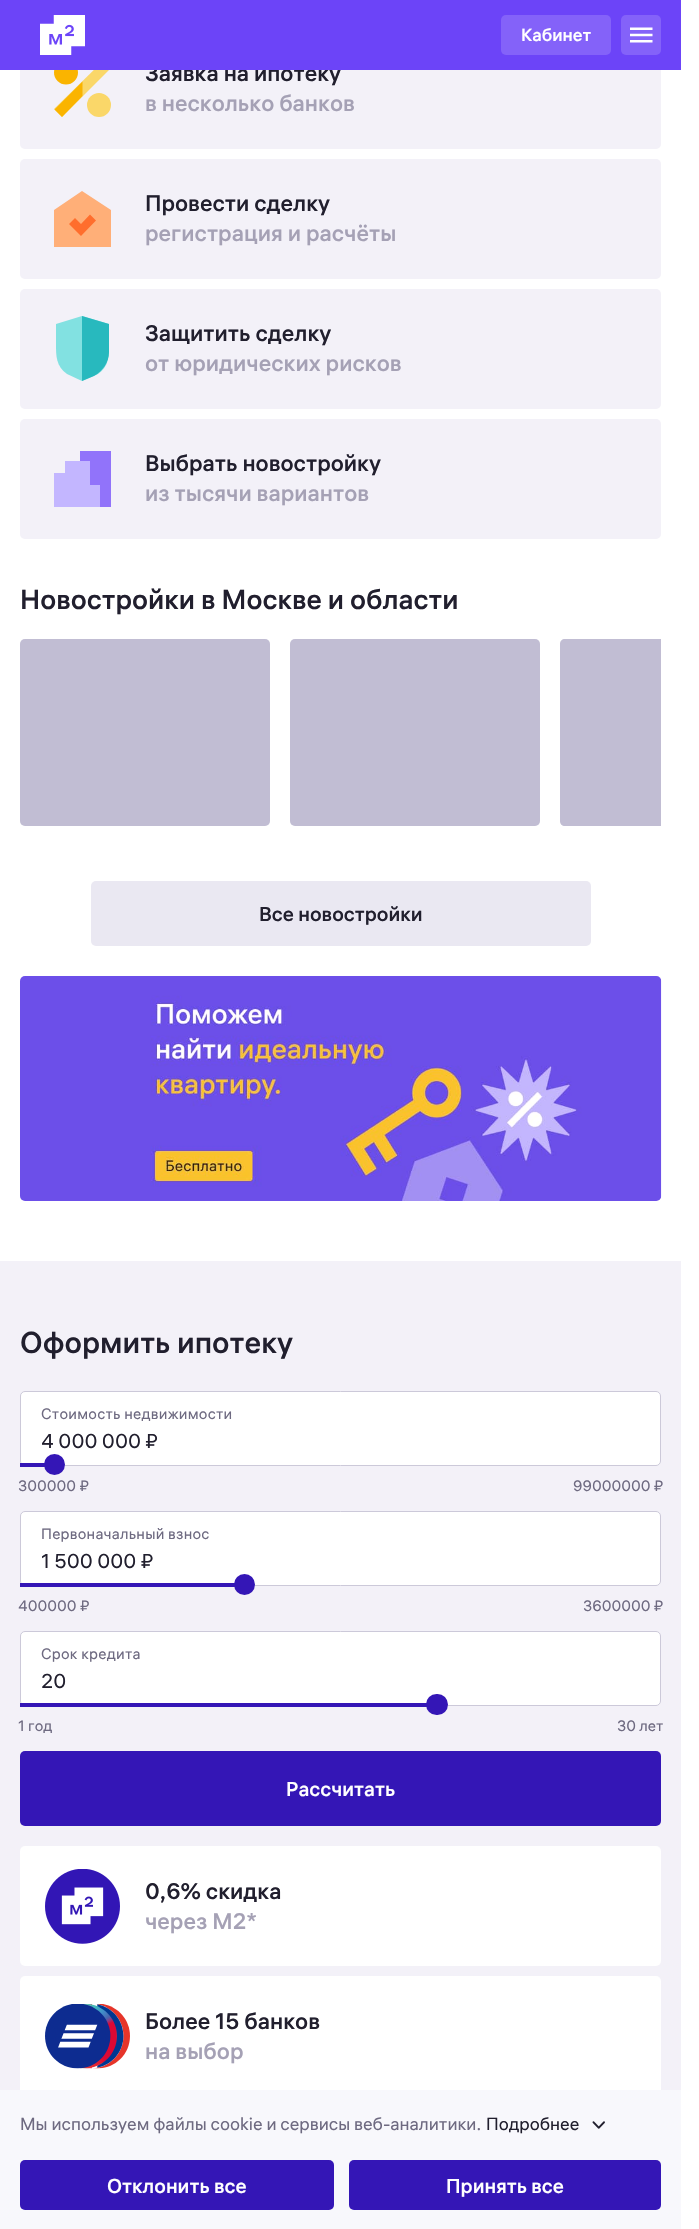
void draw(SkCanvas* canvas) {
	SkPaint paint;
	paint.setAntiAlias(true);
	auto spacedText = [&](const char* s, float x, float y, const SkFont& font, const SkPaint& ink, float letter, float word) {
		std::vector<SkGlyphID> glyphs(font.countText(s, strlen(s), SkTextEncoding::kUTF8));
		std::vector<float> xs(glyphs.size());
		font.textToGlyphs(s, strlen(s), SkTextEncoding::kUTF8, glyphs);
		font.getXPos(glyphs, xs, x);
		float extra = 0;
		for (size_t i = 0; i < glyphs.size(); i++) {
			xs[i] += extra;
			extra += letter + word * (glyphs[i] == font.unicharToGlyph(' '));
		}
		canvas->drawTextBlob(SkTextBlob::MakeFromPosHGlyphs(glyphs, xs, y, font), 0, 0, ink);
	};
	auto svgPath = [&](const char* data, bool evenOdd = false) {
		SkPath result = *SkParsePath::FromSVGString(data);
		if (evenOdd) result.setFillType(SkPathFillType::kEvenOdd);
		return result;
	};
	canvas->clear(0xffffffff);
	paint.setColor(0xfff3f1f8);
	canvas->drawRoundRect(SkRect::MakeXYWH(20, 29, 641, 120), 5, 5, paint);
	paint.setColor(0xfffab400);
	canvas->drawCircle(66, 72.5, 12, paint);
	paint.setColor(0xfffad769);
	canvas->drawCircle(99, 105, 12, paint);
	canvas->drawPath(svgPath("M54 109L103 61L111 68L62 117Z", true), paint);
	SkFont f1(fontMgr->matchFamilyStyle("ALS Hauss", SkFontStyle(500, SkFontStyle::kNormal_Width, SkFontStyle::kUpright_Slant)), 22.5);
	f1.setSubpixel(true);
	paint.setColor(0xff211f2e);
	canvas->drawString("Заявка на ипотеку", 145, 81, f1, paint);
	paint.setColor(0xff6c44f8);
	canvas->drawRect(SkRect::MakeXYWH(0, 0, 681, 70), paint);
	canvas->drawImageRect(SkImages::DeferredFromEncodedData(SkData::MakeFromFileName("img1.png")), SkRect::MakeXYWH(40, 15, 45, 40), SkSamplingOptions());
	paint.setColor(0xff8462f9);
	canvas->drawRoundRect(SkRect::MakeXYWH(501, 15, 110, 40), 5, 5, paint);
	SkFont f2(fontMgr->matchFamilyStyle("ALS Hauss", SkFontStyle(500, SkFontStyle::kNormal_Width, SkFontStyle::kUpright_Slant)), 17.5);
	f2.setSubpixel(true);
	paint.setColor(0xffffffff);
	canvas->drawString("Кабинет", 521, 41, f2, paint);
	paint.setColor(0xff8462f9);
	canvas->drawRoundRect(SkRect::MakeXYWH(621, 15, 40, 40), 5, 5, paint);
	canvas->drawImageRect(SkImages::DeferredFromEncodedData(SkData::MakeFromFileName("img2.png")), SkRect::MakeXYWH(630, 27, 23, 16), SkSamplingOptions());
	paint.setColor(0xfffab400);
	canvas->drawPath(svgPath("M54.5 109.5L82.5 81.5V96L62 117Z", true), paint);
	paint.setColor(0xffa5a1b5);
	canvas->drawString("в несколько банков", 145, 111, f1, paint);
	paint.setColor(0xfff3f1f8);
	canvas->drawRoundRect(SkRect::MakeXYWH(20, 159, 641, 120), 5, 5, paint);
	paint.setColor(0xffffaf78);
	canvas->drawPath(svgPath("M111 210L82 191L54 210ZM111 247V210H54V247Z", true), paint);
	paint.setColor(0xffff6e2d);
	canvas->drawPath(svgPath("M96 220.5L90 214.5L81 224L75 218L69 224L81 236Z", true), paint);
	paint.setColor(0xff211f2e);
	canvas->drawString("Провести сделку", 145, 211, f1, paint);
	paint.setColor(0xffa5a1b5);
	canvas->drawString("регистрация и расчёты", 145, 241, f1, paint);
	paint.setColor(0xfff3f1f8);
	canvas->drawRoundRect(SkRect::MakeXYWH(20, 289, 641, 120), 5, 5, paint);
	paint.setColor(0xff82e1e1);
	canvas->drawPath(svgPath("M109 324V344C109 356 109 366 98 374L82 381L67 374C56 366 56 356 56 344V324L82 316Z"), paint);
	paint.setColor(0xff28b9be);
	canvas->drawPath(svgPath("M109 324V352C109 362 103 371 94 376L82 381V316Z"), paint);
	paint.setColor(0xff211f2e);
	canvas->drawString("Защитить сделку", 145, 341, f1, paint);
	paint.setColor(0xffa5a1b5);
	canvas->drawString("от юридических рисков", 145, 371, f1, paint);
	paint.setColor(0xfff3f1f8);
	canvas->drawRoundRect(SkRect::MakeXYWH(20, 419, 641, 120), 5, 5, paint);
	paint.setColor(0xff9173fa);
	canvas->drawRect(SkRect::MakeXYWH(80, 451, 31, 56), paint);
	paint.setColor(0xffc3b6ff);
	canvas->drawPath(svgPath("M65 473H54V507H100V485H90V461H65Z"), paint);
	paint.setColor(0xff211f2e);
	canvas->drawString("Выбрать новостройку", 145, 471, f1, paint);
	paint.setColor(0xffa5a1b5);
	canvas->drawString("из тысячи вариантов", 145, 501, f1, paint);
	SkFont f3(fontMgr->matchFamilyStyle("ALS Hauss", SkFontStyle(500, SkFontStyle::kNormal_Width, SkFontStyle::kUpright_Slant)), 27.5);
	f3.setSubpixel(true);
	paint.setColor(0xff211f2e);
	canvas->drawString("Новостройки в Москве и области", 20, 609, f3, paint);
	paint.setColor(0xffccc9d9);
	canvas->drawRoundRect(SkRect::MakeXYWH(20, 639, 250, 187), 5, 5, paint);
	paint.setColor(0x33968ebe);
	canvas->drawRoundRect(SkRect::MakeXYWH(20, 639, 250, 187), 5, 5, paint);
	paint.setColor(0xffccc9d9);
	canvas->drawRoundRect(SkRect::MakeXYWH(290, 639, 250, 187), 5, 5, paint);
	paint.setColor(0x33968ebe);
	canvas->drawRoundRect(SkRect::MakeXYWH(290, 639, 250, 187), 5, 5, paint);
	paint.setColor(0xffccc9d9);
	canvas->drawPath(svgPath("M565 639H661V826H565C562 826 560 824 560 821V644C560 641 562 639 565 639Z"), paint);
	paint.setColor(0x33968ebe);
	canvas->drawPath(svgPath("M565 639H661V826H565C562 826 560 824 560 821V644C560 641 562 639 565 639Z"), paint);
	paint.setColor(0xffeae8f2);
	canvas->drawRoundRect(SkRect::MakeXYWH(91, 881, 500, 65), 5, 5, paint);
	SkFont f4(fontMgr->matchFamilyStyle("ALS Hauss", SkFontStyle(500, SkFontStyle::kNormal_Width, SkFontStyle::kUpright_Slant)), 20);
	f4.setSubpixel(true);
	paint.setColor(0xff211f2e);
	canvas->drawString("Все новостройки", 259, 921, f4, paint);
	canvas->drawImageRect(SkImages::DeferredFromEncodedData(SkData::MakeFromFileName("img3.png")), SkRect::MakeXYWH(20, 976, 642, 225), SkSamplingOptions());
	paint.setColor(0xfff3f1f8);
	canvas->drawRect(SkRect::MakeXYWH(0, 1261, 681, 829), paint);
	SkFont f5(fontMgr->matchFamilyStyle("ALS Hauss", SkFontStyle(500, SkFontStyle::kNormal_Width, SkFontStyle::kUpright_Slant)), 30);
	f5.setSubpixel(true);
	paint.setColor(0xff211f2e);
	canvas->drawString("Оформить ипотеку", 20, 1353, f5, paint);
	paint.setColor(0xffffffff);
	canvas->drawRoundRect(SkRect::MakeXYWH(20.5, 1391.5, 640, 74), 4.5, 4.5, paint);
	paint.setStroke(true);
	paint.setStrokeWidth(1);
	paint.setColor(0xffccc9d9);
	canvas->drawRoundRect(SkRect::MakeXYWH(20.5, 1391.5, 640, 74), 4.5, 4.5, paint);
	SkFont f6(fontMgr->matchFamilyStyle("ALS Hauss", SkFontStyle::Normal()), 15);
	f6.setSubpixel(true);
	paint.setStroke(false);
	paint.setColor(0xff6e6a81);
	spacedText("Стоимость недвижимости", 41, 1419, f6, paint, 0.25, 0);
	SkFont f7(fontMgr->matchFamilyStyle("ALS Hauss", SkFontStyle::Normal()), 20);
	f7.setSubpixel(true);
	paint.setColor(0xff211f2e);
	canvas->drawString("4 000 000 ₽", 41, 1448, f7, paint);
	paint.setColor(0xff3416b6);
	canvas->drawRect(SkRect::MakeXYWH(20, 1463, 25, 4), paint);
	canvas->drawCircle(54.5, 1464.5, 10.5, paint);
	paint.setColor(0xff6e6a81);
	canvas->drawString("300000 ₽", 18, 1491, f6, paint);
	canvas->drawString("99000000 ₽", 573, 1491, f6, paint);
	paint.setColor(0xffffffff);
	canvas->drawRoundRect(SkRect::MakeXYWH(20.5, 1511.5, 640, 74), 4.5, 4.5, paint);
	paint.setStroke(true);
	paint.setColor(0xffccc9d9);
	canvas->drawRoundRect(SkRect::MakeXYWH(20.5, 1511.5, 640, 74), 4.5, 4.5, paint);
	paint.setStroke(false);
	paint.setColor(0xff6e6a81);
	spacedText("Первоначальный взнос", 41, 1539, f6, paint, 0.25, 0);
	paint.setColor(0xff211f2e);
	canvas->drawString("1 500 000 ₽", 41, 1568, f7, paint);
	paint.setColor(0xff3416b6);
	canvas->drawRect(SkRect::MakeXYWH(20, 1583, 215, 4), paint);
	canvas->drawCircle(244.5, 1584.5, 10.5, paint);
	paint.setColor(0xff6e6a81);
	canvas->drawString("400000 ₽", 18, 1611, f6, paint);
	canvas->drawString("3600000 ₽", 583, 1611, f6, paint);
	paint.setColor(0xffffffff);
	canvas->drawRoundRect(SkRect::MakeXYWH(20.5, 1631.5, 640, 74), 4.5, 4.5, paint);
	paint.setStroke(true);
	paint.setColor(0xffccc9d9);
	canvas->drawRoundRect(SkRect::MakeXYWH(20.5, 1631.5, 640, 74), 4.5, 4.5, paint);
	paint.setStroke(false);
	paint.setColor(0xff6e6a81);
	spacedText("Срок кредита", 41, 1659, f6, paint, 0.25, 0);
	paint.setColor(0xff211f2e);
	canvas->drawString("20", 41, 1688, f7, paint);
	paint.setColor(0xff3416b6);
	canvas->drawRect(SkRect::MakeXYWH(20, 1703, 407, 4), paint);
	canvas->drawRoundRect(SkRect::MakeXYWH(426, 1694, 22, 21), 10.5, 10.5, paint);
	paint.setColor(0xff6e6a81);
	canvas->drawString("1 год", 18, 1731, f6, paint);
	canvas->drawString("30 лет", 617, 1731, f6, paint);
	paint.setColor(0xff3416b6);
	canvas->drawRoundRect(SkRect::MakeXYWH(20, 1751, 641, 75), 5, 5, paint);
	paint.setColor(0xffffffff);
	canvas->drawString("Рассчитать", 286, 1796, f4, paint);
	canvas->drawRoundRect(SkRect::MakeXYWH(20, 1846, 641, 120), 5, 5, paint);
	canvas->drawImageRect(SkImages::DeferredFromEncodedData(SkData::MakeFromFileName("img4.png")), SkRect::MakeXYWH(45, 1869, 75, 75), SkSamplingOptions());
	paint.setColor(0xff211f2e);
	canvas->drawString("0,6% скидка", 145, 1899, f1, paint);
	paint.setColor(0xffa5a1b5);
	canvas->drawString("через М2*", 145, 1929, f1, paint);
	paint.setColor(0xffffffff);
	canvas->drawRoundRect(SkRect::MakeXYWH(20, 1976, 641, 120), 5, 5, paint);
	canvas->drawImageRect(SkImages::DeferredFromEncodedData(SkData::MakeFromFileName("img5.png")), SkRect::MakeXYWH(45, 2004, 85, 65), SkSamplingOptions());
	paint.setColor(0xff211f2e);
	canvas->drawString("Более 15 банков", 145, 2029, f1, paint);
	paint.setColor(0xffa5a1b5);
	canvas->drawString("на выбор", 145, 2059, f1, paint);
	paint.setColor(0xfff8f8fc);
	canvas->drawRect(SkRect::MakeXYWH(0, 2090, 681, 139), paint);
	SkFont f8(fontMgr->matchFamilyStyle("ALS Hauss", SkFontStyle::Normal()), 17.5);
	f8.setSubpixel(true);
	paint.setColor(0xff6e6a81);
	canvas->drawString("Мы используем файлы cookie и сервисы веб-аналитики.", 20, 2130, f8, paint);
	paint.setColor(0xff211f2e);
	canvas->drawString("Подробнее", 486, 2130, f8, paint);
	canvas->drawImageRect(SkImages::DeferredFromEncodedData(SkData::MakeFromFileName("img6.png")), SkRect::MakeXYWH(592, 2121, 13, 8), SkSamplingOptions());
	paint.setColor(0xff3416b6);
	canvas->drawRoundRect(SkRect::MakeXYWH(20, 2160, 314, 50), 5, 5, paint);
	paint.setColor(0xffffffff);
	canvas->drawString("Отклонить все", 107, 2193, f4, paint);
	paint.setColor(0xff3416b6);
	canvas->drawRoundRect(SkRect::MakeXYWH(349, 2160, 312, 50), 5, 5, paint);
	paint.setColor(0xffffffff);
	canvas->drawString("Принять все", 446, 2193, f4, paint);
}
